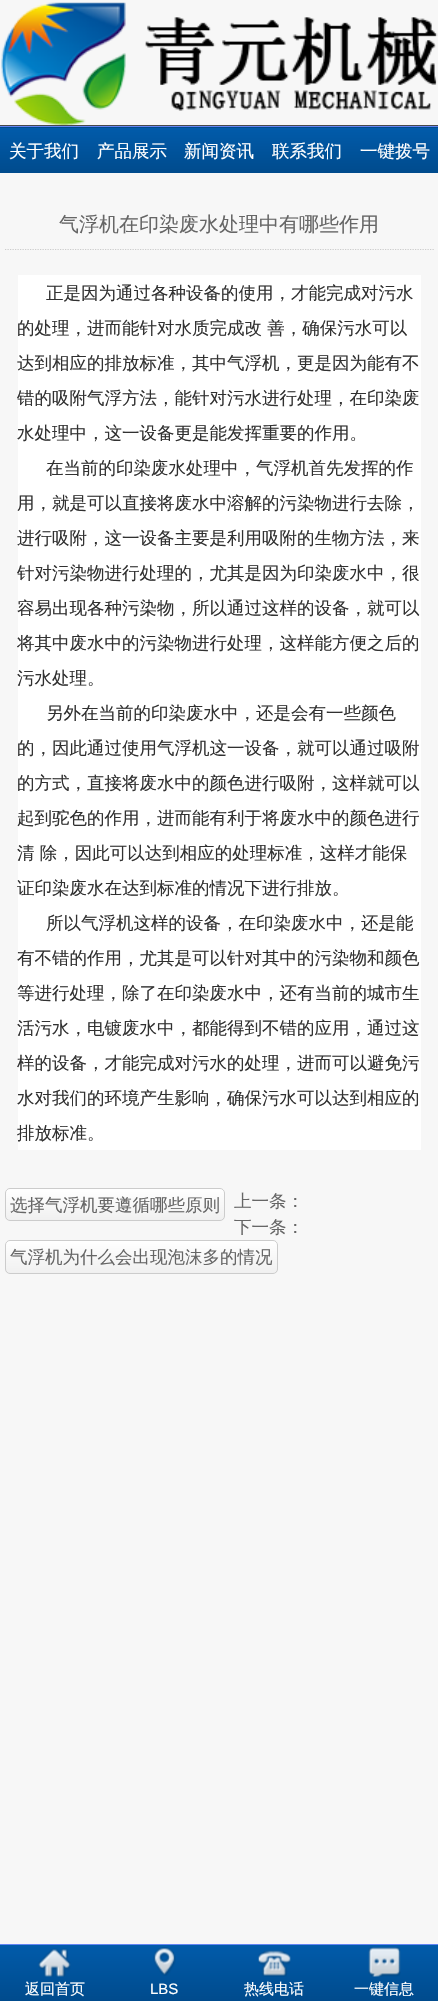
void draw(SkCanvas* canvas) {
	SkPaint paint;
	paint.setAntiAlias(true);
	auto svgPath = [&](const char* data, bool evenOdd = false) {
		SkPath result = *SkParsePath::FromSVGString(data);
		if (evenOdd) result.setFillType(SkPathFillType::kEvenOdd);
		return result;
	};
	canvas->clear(0xfff7f7f7);
	canvas->drawImageRect(SkImages::DeferredFromEncodedData(SkData::MakeFromFileName("img1.png")), SkRect::MakeXYWH(1, 2, 437, 123), SkSamplingOptions());
	paint.setColor(0xff494949);
	canvas->drawRect(SkRect::MakeXYWH(0, 125, 438, 1), paint);
	{
		const SkColor colors[] = {0xff015baa, 0xff004b8d};
		const float stops[] = {0, 1};
		const SkPoint ends[] = {{0, 83}, {0, 128}};
		paint.setShader(SkGradientShader::MakeLinear(ends, colors, stops, 2, SkTileMode::kClamp));
		paint.setAlpha(255);
	}
	canvas->drawRect(SkRect::MakeXYWH(0, 127, 438, 1), paint);
	{
		const SkColor colors[] = {0xff015baa, 0xff004b8d};
		const float stops[] = {0, 1};
		const SkPoint ends[] = {{0, 128}, {0, 173}};
		paint.setShader(SkGradientShader::MakeLinear(ends, colors, stops, 2, SkTileMode::kClamp));
		paint.setAlpha(255);
	}
	canvas->drawRect(SkRect::MakeXYWH(0, 128, 438, 45), paint);
	paint.setShader(nullptr);
	paint.setColor(0xff6385f3);
	canvas->drawRect(SkRect::MakeXYWH(0, 126, 438, 1), paint);
	SkFont f1(fontMgr->matchFamilyStyle("WenQuanYi Zen Hei", SkFontStyle(500, SkFontStyle::kNormal_Width, SkFontStyle::kUpright_Slant)), 17.5);
	f1.setSubpixel(true);
	paint.setColor(0xffffffff);
	canvas->drawString("关于我们", 9, 157, f1, paint);
	canvas->drawString("产品展示", 97, 157, f1, paint);
	canvas->drawString("新闻资讯", 184, 157, f1, paint);
	canvas->drawString("联系我们", 272, 157, f1, paint);
	canvas->drawString("一键拨号", 360, 157, f1, paint);
	paint.setStroke(true);
	paint.setStrokeWidth(1.2);
	paint.setColor(0xffcccccc);
	paint.setPathEffect(SkDashPathEffect::Make({{1.25f, 1.25f}}, 0));
	canvas->drawPath(svgPath("M5 249.5H434"), paint);
	paint.setPathEffect(nullptr);
	SkFont f2(fontMgr->matchFamilyStyle("WenQuanYi Zen Hei", SkFontStyle(500, SkFontStyle::kNormal_Width, SkFontStyle::kUpright_Slant)), 20);
	f2.setSubpixel(true);
	paint.setStroke(false);
	paint.setColor(0xff666666);
	canvas->drawString("气浮机在印染废水处理中有哪些作用", 59, 231, f2, paint);
	paint.setColor(0xffffffff);
	canvas->drawRect(SkRect::MakeXYWH(18, 275, 403, 875), paint);
	paint.setColor(0xff313131);
	canvas->drawString("正是因为通过各种设备的使用，才能完成对污水", 46, 299, f1, paint);
	canvas->drawString("的处理，进而能针对水质完成改 善，确保污水可以", 17, 334, f1, paint);
	canvas->drawString("达到相应的排放标准，其中气浮机，更是因为能有不", 17, 369, f1, paint);
	canvas->drawString("错的吸附气浮方法，能针对污水进行处理，在印染废", 17, 404, f1, paint);
	canvas->drawString("水处理中，这一设备更是能发挥重要的作用。", 17, 439, f1, paint);
	canvas->drawString("在当前的印染废水处理中，气浮机首先发挥的作", 46, 474, f1, paint);
	canvas->drawString("用，就是可以直接将废水中溶解的污染物进行去除，", 17, 509, f1, paint);
	canvas->drawString("进行吸附，这一设备主要是利用吸附的生物方法，来", 17, 544, f1, paint);
	canvas->drawString("针对污染物进行处理的，尤其是因为印染废水中，很", 17, 579, f1, paint);
	canvas->drawString("容易出现各种污染物，所以通过这样的设备，就可以", 17, 614, f1, paint);
	canvas->drawString("将其中废水中的污染物进行处理，这样能方便之后的", 17, 649, f1, paint);
	canvas->drawString("污水处理。", 17, 684, f1, paint);
	canvas->drawString("另外在当前的印染废水中，还是会有一些颜色", 46, 719, f1, paint);
	canvas->drawString("的，因此通过使用气浮机这一设备，就可以通过吸附", 17, 754, f1, paint);
	canvas->drawString("的方式，直接将废水中的颜色进行吸附，这样就可以", 17, 789, f1, paint);
	canvas->drawString("起到驼色的作用，进而能有利于将废水中的颜色进行", 17, 824, f1, paint);
	canvas->drawString("清 除，因此可以达到相应的处理标准，这样才能保", 17, 859, f1, paint);
	canvas->drawString("证印染废水在达到标准的情况下进行排放。", 17, 894, f1, paint);
	canvas->drawString("所以气浮机这样的设备，在印染废水中，还是能", 46, 929, f1, paint);
	canvas->drawString("有不错的作用，尤其是可以针对其中的污染物和颜色", 17, 964, f1, paint);
	canvas->drawString("等进行处理，除了在印染废水中，还有当前的城市生", 17, 999, f1, paint);
	canvas->drawString("活污水，电镀废水中，都能得到不错的应用，通过这", 17, 1034, f1, paint);
	canvas->drawString("样的设备，才能完成对污水的处理，进而可以避免污", 17, 1069, f1, paint);
	canvas->drawString("水对我们的环境产生影响，确保污水可以达到相应的", 17, 1104, f1, paint);
	canvas->drawString("排放标准。", 17, 1139, f1, paint);
	canvas->save();
	canvas->clipPath(svgPath("M10 1188H220C223 1188 225 1190 225 1193V1216C225 1219 223 1221 220 1221H10C7 1221 5 1219 5 1216V1193C5 1190 7 1188 10 1188Z"), true);
	{
		const SkColor colors[] = {0xffffffff, 0xfff0f0f0};
		const float stops[] = {0, 1};
		const SkPoint ends[] = {{6.2, 1189}, {6.2, 1220}};
		paint.setShader(SkGradientShader::MakeLinear(ends, colors, stops, 2, SkTileMode::kClamp));
		paint.setAlpha(255);
	}
	canvas->drawRect(SkRect::MakeXYWH(5, 1189, 220, 31), paint);
	canvas->restore();
	paint.setStroke(true);
	paint.setStrokeWidth(1);
	paint.setShader(nullptr);
	paint.setColor(0xffcccccc);
	canvas->drawRoundRect(SkRect::MakeXYWH(5.5, 1188.5, 219, 32), 4.5, 4.5, paint);
	paint.setStroke(false);
	paint.setColor(0xff666666);
	canvas->drawString("选择气浮机要遵循哪些原则", 10, 1211, f1, paint);
	canvas->drawString("上一条：", 234, 1207, f1, paint);
	canvas->drawString("下一条：", 234, 1233, f1, paint);
	canvas->save();
	canvas->clipPath(svgPath("M10 1240H273C276 1240 278 1242 278 1245V1269C278 1272 276 1274 273 1274H10C7 1274 5 1272 5 1269V1245C5 1242 7 1240 10 1240Z"), true);
	{
		const SkColor colors[] = {0xffffffff, 0xfff0f0f0};
		const float stops[] = {0, 1};
		const SkPoint ends[] = {{6.2, 1241}, {6.2, 1273}};
		paint.setShader(SkGradientShader::MakeLinear(ends, colors, stops, 2, SkTileMode::kClamp));
		paint.setAlpha(255);
	}
	canvas->drawRect(SkRect::MakeXYWH(5, 1241, 273, 32), paint);
	canvas->restore();
	paint.setStroke(true);
	paint.setShader(nullptr);
	paint.setColor(0xffcccccc);
	canvas->drawRoundRect(SkRect::MakeXYWH(5.5, 1240.5, 272, 33), 4.5, 4.5, paint);
	paint.setStroke(false);
	paint.setColor(0xff666666);
	canvas->drawString("气浮机为什么会出现泡沫多的情况", 10, 1263, f1, paint);
	{
		const SkColor colors[] = {0xff015baa, 0xff004b8d};
		const float stops[] = {0, 1};
		const SkPoint ends[] = {{0, 1945}, {0, 2001}};
		paint.setShader(SkGradientShader::MakeLinear(ends, colors, stops, 2, SkTileMode::kClamp));
		paint.setAlpha(255);
	}
	canvas->drawRect(SkRect::MakeXYWH(0, 1945, 438, 56), paint);
	paint.setShader(nullptr);
	paint.setColor(0xff6385f3);
	canvas->drawRect(SkRect::MakeXYWH(0, 1944, 438, 1), paint);
	canvas->drawImageRect(SkImages::DeferredFromEncodedData(SkData::MakeFromFileName("img2.png")), SkRect::MakeXYWH(38, 1948, 33, 29), SkSamplingOptions());
	SkFont f3(fontMgr->matchFamilyStyle("WenQuanYi Zen Hei", SkFontStyle(500, SkFontStyle::kNormal_Width, SkFontStyle::kUpright_Slant)), 15);
	f3.setSubpixel(true);
	paint.setColor(0xffffffff);
	canvas->drawString("返回首页", 25, 1994, f3, paint);
	canvas->drawImageRect(SkImages::DeferredFromEncodedData(SkData::MakeFromFileName("img3.png")), SkRect::MakeXYWH(153, 1947, 23, 29), SkSamplingOptions());
	SkFont f4(fontMgr->matchFamilyStyle("Liberation Sans", SkFontStyle::Normal()), 15);
	f4.setSubpixel(true);
	canvas->drawString("LBS", 150, 1994, f4, paint);
	canvas->drawImageRect(SkImages::DeferredFromEncodedData(SkData::MakeFromFileName("img4.png")), SkRect::MakeXYWH(258, 1950, 33, 27), SkSamplingOptions());
	canvas->drawString("热线电话", 244, 1994, f3, paint);
	canvas->drawImageRect(SkImages::DeferredFromEncodedData(SkData::MakeFromFileName("img5.png")), SkRect::MakeXYWH(368, 1947, 33, 30), SkSamplingOptions());
	canvas->drawString("一键信息", 354, 1994, f3, paint);
}
